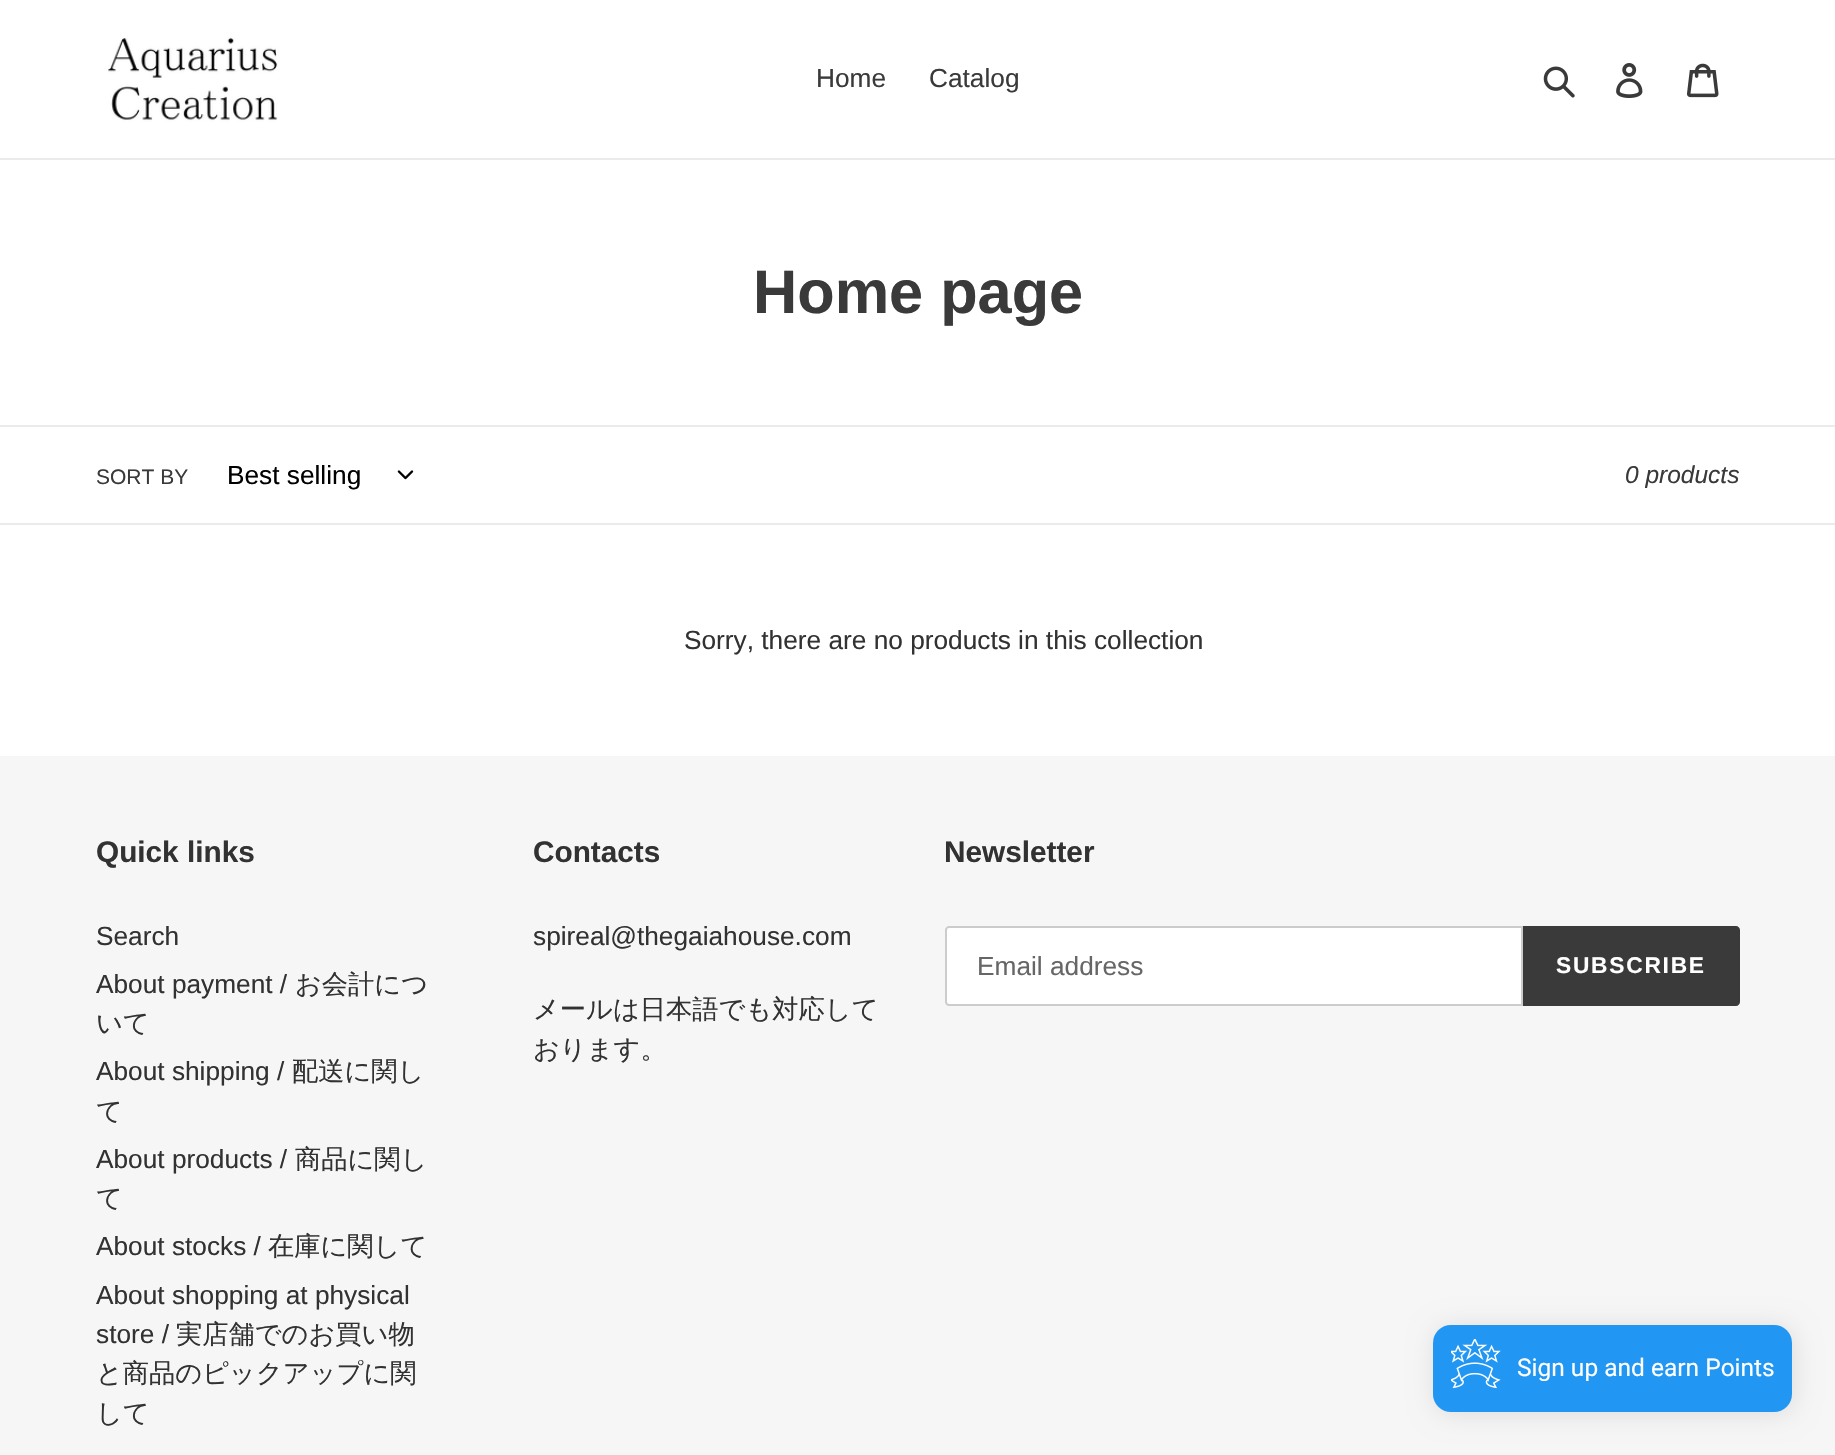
void draw(SkCanvas* canvas) {
	SkPaint paint;
	paint.setAntiAlias(true);
	auto spacedText = [&](const char* s, float x, float y, const SkFont& font, const SkPaint& ink, float letter, float word) {
		std::vector<SkGlyphID> glyphs(font.countText(s, strlen(s), SkTextEncoding::kUTF8));
		std::vector<float> xs(glyphs.size());
		font.textToGlyphs(s, strlen(s), SkTextEncoding::kUTF8, glyphs);
		font.getXPos(glyphs, xs, x);
		float extra = 0;
		for (size_t i = 0; i < glyphs.size(); i++) {
			xs[i] += extra;
			extra += letter + word * (glyphs[i] == font.unicharToGlyph(' '));
		}
		canvas->drawTextBlob(SkTextBlob::MakeFromPosHGlyphs(glyphs, xs, y, font), 0, 0, ink);
	};
	auto svgPath = [&](const char* data, bool evenOdd = false) {
		SkPath result = *SkParsePath::FromSVGString(data);
		if (evenOdd) result.setFillType(SkPathFillType::kEvenOdd);
		return result;
	};
	canvas->clear(0xffffffff);
	paint.setColor(0xffebebeb);
	canvas->drawRect(SkRect::MakeXYWH(0, 158, 1835, 2), paint);
	canvas->drawImageRect(SkImages::DeferredFromEncodedData(SkData::MakeFromFileName("img1.png")), SkRect::MakeXYWH(106, 36, 173, 86), SkSamplingOptions());
	SkFont f1(fontMgr->matchFamilyStyle("Liberation Sans", SkFontStyle::Normal()), 26.25);
	f1.setSubpixel(true);
	paint.setColor(0xff3a3a3a);
	canvas->drawString("Home", 816, 87, f1, paint);
	canvas->drawString("Catalog", 929, 87, f1, paint);
	canvas->drawImageRect(SkImages::DeferredFromEncodedData(SkData::MakeFromFileName("img2.png")), SkRect::MakeXYWH(1543, 66, 32, 32), SkSamplingOptions());
	canvas->drawImageRect(SkImages::DeferredFromEncodedData(SkData::MakeFromFileName("img3.png")), SkRect::MakeXYWH(1616, 63, 27, 35), SkSamplingOptions());
	canvas->drawImageRect(SkImages::DeferredFromEncodedData(SkData::MakeFromFileName("img4.png")), SkRect::MakeXYWH(1687, 63, 32, 35), SkSamplingOptions());
	SkFont f2(fontMgr->matchFamilyStyle("Liberation Sans", SkFontStyle::Bold()), 61.25);
	f2.setSubpixel(true);
	canvas->drawString("Home page", 753, 313, f2, paint);
	paint.setColor(0xffebebeb);
	canvas->drawRect(SkRect::MakeXYWH(0, 425, 1835, 2), paint);
	canvas->drawRect(SkRect::MakeXYWH(0, 523, 1835, 2), paint);
	SkFont f3(fontMgr->matchFamilyStyle("Liberation Sans", SkFontStyle::Normal()), 21);
	f3.setSubpixel(true);
	paint.setColor(0xff3a3a3a);
	canvas->drawString("SORT BY", 96, 484, f3, paint);
	paint.setColor(0xff000000);
	canvas->drawString("Best selling", 227, 484, f1, paint);
	canvas->drawImageRect(SkImages::DeferredFromEncodedData(SkData::MakeFromFileName("img5.png")), SkRect::MakeXYWH(397, 470, 17, 10), SkSamplingOptions());
	SkFont f4(fontMgr->matchFamilyStyle("Liberation Sans", SkFontStyle::Italic()), 24.5);
	f4.setSubpixel(true);
	paint.setColor(0xff3a3a3a);
	canvas->drawString("0 products", 1625, 483, f4, paint);
	paint.setColor(0xff333232);
	canvas->drawString("Sorry, there are no products in this collection", 684, 649, f1, paint);
	paint.setColor(0xfff6f6f6);
	canvas->drawRect(SkRect::MakeXYWH(0, 756, 1835, 699), paint);
	SkFont f5(fontMgr->matchFamilyStyle("Liberation Sans", SkFontStyle::Bold()), 29.75);
	f5.setSubpixel(true);
	paint.setColor(0xff333232);
	canvas->drawString("Quick links", 96, 862, f5, paint);
	canvas->drawString("Search", 96, 945, f1, paint);
	canvas->drawString("About payment /", 96, 993, f1, paint);
	SkFont f6(fontMgr->matchFamilyStyle("WenQuanYi Zen Hei", SkFontStyle(500, SkFontStyle::kNormal_Width, SkFontStyle::kUpright_Slant)), 26.25);
	f6.setSubpixel(true);
	canvas->drawString("お会計につ", 295, 993, f6, paint);
	canvas->drawString("いて", 96, 1032, f6, paint);
	canvas->drawString("About shipping /", 96, 1080, f1, paint);
	canvas->drawString("配送に関し", 292, 1080, f6, paint);
	canvas->drawString("て", 96, 1120, f6, paint);
	canvas->drawString("About products /", 96, 1168, f1, paint);
	canvas->drawString("商品に関し", 295, 1168, f6, paint);
	canvas->drawString("て", 96, 1207, f6, paint);
	canvas->drawString("About stocks /", 96, 1255, f1, paint);
	canvas->drawString("在庫に関して", 268, 1255, f6, paint);
	canvas->drawString("About shopping at physical", 96, 1304, f1, paint);
	canvas->drawString("store /", 96, 1343, f1, paint);
	canvas->drawString("実店舗でのお買い物", 176, 1343, f6, paint);
	canvas->drawString("と商品のピックアップに関", 96, 1382, f6, paint);
	canvas->drawString("して", 96, 1422, f6, paint);
	canvas->drawString("Contacts", 533, 862, f5, paint);
	canvas->drawString("spireal@thegaiahouse.com", 533, 945, f1, paint);
	canvas->drawString("メールは日本語でも対応して", 533, 1018, f6, paint);
	canvas->drawString("おります。", 533, 1058, f6, paint);
	canvas->drawString("Newsletter", 944, 862, f5, paint);
	paint.setColor(0xffffffff);
	canvas->drawPath(svgPath("M949 927H1522V1005H949C947.5 1005 946 1003.5 946 1002V930C946 928.5 947.5 927 949 927Z"), paint);
	paint.setStroke(true);
	paint.setStrokeWidth(2);
	paint.setColor(0xffcccccc);
	canvas->drawPath(svgPath("M949 927H1522V1005H949C947.5 1005 946 1003.5 946 1002V930C946 928.5 947.5 927 949 927Z"), paint);
	paint.setStroke(false);
	paint.setColor(0xff666666);
	canvas->drawString("Email address", 977, 975, f1, paint);
	paint.setColor(0xff3a3a3a);
	canvas->drawPath(svgPath("M1523 926H1736C1738 926 1740 928 1740 930V1002C1740 1004 1738 1006 1736 1006H1523Z"), paint);
	SkFont f7(fontMgr->matchFamilyStyle("Liberation Sans", SkFontStyle::Bold()), 22.75);
	f7.setSubpixel(true);
	paint.setColor(0xffffffff);
	spacedText("SUBSCRIBE", 1556, 973, f7, paint, 1.75, 0);
	paint.setColor(0x1a000000);
	paint.setMaskFilter(SkMaskFilter::MakeBlur(kNormal_SkBlurStyle, 13));
	canvas->drawRoundRect(SkRect::MakeXYWH(1435, 1327, 359, 87), 18, 18, paint);
	paint.setMaskFilter(nullptr);
	paint.setColor(0xff2196f3);
	canvas->drawRoundRect(SkRect::MakeXYWH(1433, 1325, 359, 87), 18, 18, paint);
	canvas->drawImageRect(SkImages::DeferredFromEncodedData(SkData::MakeFromFileName("img6.png")), SkRect::MakeXYWH(1451, 1339, 50, 50), SkSamplingOptions());
	SkFont f8(fontMgr->matchFamilyStyle("Roboto", SkFontStyle::Normal()), 24.5);
	f8.setSubpixel(true);
	paint.setColor(0xffffffff);
	canvas->drawString("Sign up and earn Points", 1517, 1376, f8, paint);
}
